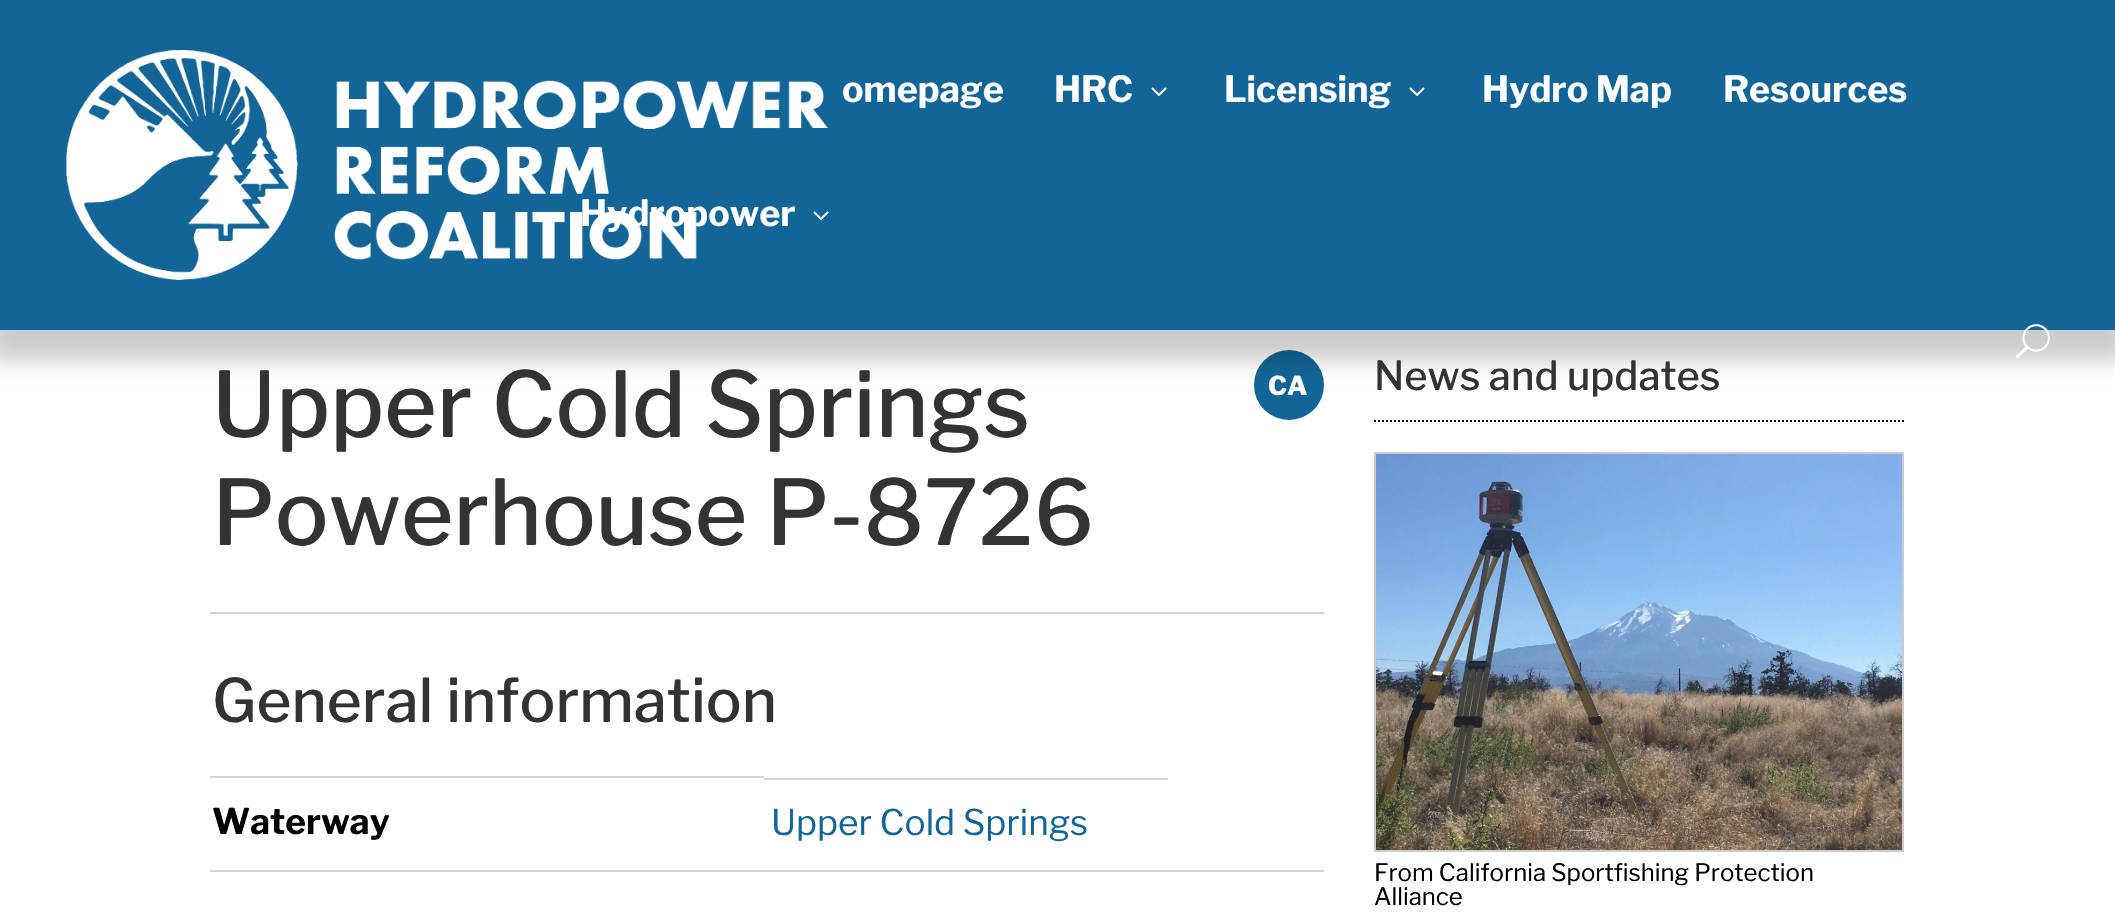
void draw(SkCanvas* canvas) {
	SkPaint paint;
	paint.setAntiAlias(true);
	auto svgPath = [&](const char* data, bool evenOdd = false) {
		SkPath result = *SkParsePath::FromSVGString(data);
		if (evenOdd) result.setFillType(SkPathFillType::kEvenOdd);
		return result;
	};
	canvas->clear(0xffffffff);
	paint.setColor(0xff126596);
	canvas->drawCircle(1289, 385, 35, paint);
	paint.setColor(0x33000000);
	paint.setMaskFilter(SkMaskFilter::MakeBlur(kNormal_SkBlurStyle, 10));
	canvas->drawRect(SkRect::MakeXYWH(-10, 10, 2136, 350), paint);
	paint.setMaskFilter(nullptr);
	paint.setColor(0xff126596);
	canvas->drawRect(SkRect::MakeXYWH(0, 0, 2115, 330), paint);
	canvas->drawImageRect(SkImages::DeferredFromEncodedData(SkData::MakeFromFileName("img1.png")), SkRect::MakeXYWH(66, 50, 762, 230), SkSamplingOptions());
	SkFont f1(fontMgr->matchFamilyStyle("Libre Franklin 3", SkFontStyle(100, SkFontStyle::kNormal_Width, SkFontStyle::kUpright_Slant)), 36);
	f1.setSubpixel(true);
	paint.setColor(0xffffffff);
	canvas->drawString("omepage", 842, 102, f1, paint);
	canvas->drawString("HRC", 1054, 102, f1, paint);
	canvas->drawImageRect(SkImages::DeferredFromEncodedData(SkData::MakeFromFileName("img2.png")), SkRect::MakeXYWH(1151, 87, 16, 9), SkSamplingOptions());
	canvas->drawString("Licensing", 1224, 102, f1, paint);
	canvas->drawImageRect(SkImages::DeferredFromEncodedData(SkData::MakeFromFileName("img2.png")), SkRect::MakeXYWH(1409, 87, 16, 9), SkSamplingOptions());
	canvas->drawString("Hydro Map", 1482, 102, f1, paint);
	canvas->drawString("Resources", 1723, 102, f1, paint);
	canvas->drawString("Hydropower", 580, 226, f1, paint);
	canvas->drawImageRect(SkImages::DeferredFromEncodedData(SkData::MakeFromFileName("img2.png")), SkRect::MakeXYWH(813, 211, 16, 9), SkSamplingOptions());
	canvas->drawImageRect(SkImages::DeferredFromEncodedData(SkData::MakeFromFileName("img3.png")), SkRect::MakeXYWH(2016, 324, 34, 35), SkSamplingOptions());
	SkFont f2(fontMgr->matchFamilyStyle("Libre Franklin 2", SkFontStyle(100, SkFontStyle::kNormal_Width, SkFontStyle::kUpright_Slant)), 90);
	f2.setSubpixel(true);
	paint.setColor(0xff333333);
	canvas->drawString("Upper Cold Springs", 212, 437, f2, paint);
	canvas->drawString("Powerhouse P-8726", 212, 545, f2, paint);
	SkFont f3(fontMgr->matchFamilyStyle("Libre Franklin", SkFontStyle(100, SkFontStyle::kNormal_Width, SkFontStyle::kUpright_Slant)), 26);
	f3.setSubpixel(true);
	paint.setColor(0xffffffff);
	canvas->drawString("CA", 1268, 395, f3, paint);
	paint.setColor(0xffd1d3d4);
	canvas->drawRect(SkRect::MakeXYWH(210, 612, 1114, 2), paint);
	SkFont f4(fontMgr->matchFamilyStyle("Libre Franklin 2", SkFontStyle(100, SkFontStyle::kNormal_Width, SkFontStyle::kUpright_Slant)), 60);
	f4.setSubpixel(true);
	paint.setColor(0xff333333);
	canvas->drawString("General information", 212, 722, f4, paint);
	paint.setColor(0xffd1d3d4);
	canvas->drawRect(SkRect::MakeXYWH(210, 776, 554, 2), paint);
	SkFont f5(fontMgr->matchFamilyStyle("Libre Franklin 3", SkFontStyle(100, SkFontStyle::kNormal_Width, SkFontStyle::kUpright_Slant)), 35.25);
	f5.setSubpixel(true);
	paint.setColor(0xff000000);
	canvas->drawString("Waterway", 212, 834, f5, paint);
	paint.setColor(0xffd1d3d4);
	canvas->drawRect(SkRect::MakeXYWH(764, 778, 404, 2), paint);
	SkFont f6(fontMgr->matchFamilyStyle("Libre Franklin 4", SkFontStyle(100, SkFontStyle::kNormal_Width, SkFontStyle::kUpright_Slant)), 35.25);
	f6.setSubpixel(true);
	paint.setColor(0xff126596);
	canvas->drawString("Upper Cold Springs", 771, 835, f6, paint);
	paint.setColor(0xffd1d3d4);
	canvas->drawRect(SkRect::MakeXYWH(210, 870, 1114, 2), paint);
	SkFont f7(fontMgr->matchFamilyStyle("Libre Franklin 2", SkFontStyle(100, SkFontStyle::kNormal_Width, SkFontStyle::kUpright_Slant)), 40);
	f7.setSubpixel(true);
	paint.setColor(0xff333333);
	canvas->drawString("News and updates", 1374, 390, f7, paint);
	paint.setStroke(true);
	paint.setStrokeWidth(2);
	paint.setColor(0xff000000);
	paint.setPathEffect(SkDashPathEffect::Make({{2, 2}}, 0));
	canvas->drawPath(svgPath("M1374 421H1904"), paint);
	paint.setPathEffect(nullptr);
	paint.setColor(0xffcbcbcb);
	canvas->drawRect(SkRect::MakeXYWH(1375, 453, 528, 398), paint);
	canvas->drawImageRect(SkImages::DeferredFromEncodedData(SkData::MakeFromFileName("img4.png")), SkRect::MakeXYWH(1376, 454, 526, 396), SkSamplingOptions());
	SkFont f8(fontMgr->matchFamilyStyle("Libre Franklin 4", SkFontStyle(100, SkFontStyle::kNormal_Width, SkFontStyle::kUpright_Slant)), 24);
	f8.setSubpixel(true);
	paint.setStroke(false);
	paint.setColor(0xff000000);
	canvas->drawString("From California Sportfishing Protection", 1374, 881, f8, paint);
	canvas->drawString("Alliance", 1374, 905, f8, paint);
}
